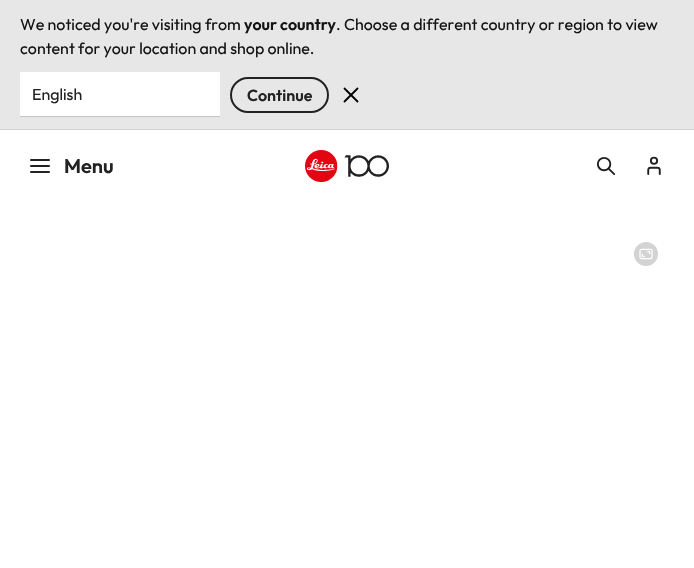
void draw(SkCanvas* canvas) {
	SkPaint paint;
	paint.setAntiAlias(true);
	auto svgPath = [&](const char* data, bool evenOdd = false) {
		SkPath result = *SkParsePath::FromSVGString(data);
		if (evenOdd) result.setFillType(SkPathFillType::kEvenOdd);
		return result;
	};
	canvas->clear(0xffffffff);
	paint.setColor(0xffe7e7e7);
	canvas->drawRect(SkRect::MakeXYWH(0, 0, 694, 129), paint);
	paint.setColor(0xffd1d1d1);
	canvas->drawRect(SkRect::MakeXYWH(0, 129, 694, 1), paint);
	SkFont f1(fontMgr->matchFamilyStyle("Outfit", SkFontStyle::Normal()), 16);
	f1.setSubpixel(true);
	paint.setColor(0xff141414);
	canvas->drawString("We noticed you're visiting from", 20, 30, f1, paint);
	SkFont f2(fontMgr->matchFamilyStyle("Outfit", SkFontStyle(600, SkFontStyle::kNormal_Width, SkFontStyle::kUpright_Slant)), 16);
	f2.setSubpixel(true);
	canvas->drawString("your country", 244, 30, f2, paint);
	canvas->drawString(". Choose a different country or region to view", 336, 30, f1, paint);
	canvas->drawString("content for your location and shop online.", 20, 54, f1, paint);
	paint.setColor(0xffffffff);
	canvas->drawRect(SkRect::MakeXYWH(20, 72, 200, 44), paint);
	paint.setColor(0xffc4c4c4);
	canvas->drawRect(SkRect::MakeXYWH(20, 116, 200, 1), paint);
	paint.setColor(0xff222222);
	canvas->drawString("English", 32, 100, f1, paint);
	paint.setStroke(true);
	paint.setStrokeWidth(2);
	canvas->drawRoundRect(SkRect::MakeXYWH(231, 78, 97, 34), 17, 17, paint);
	paint.setStroke(false);
	canvas->drawString("Continue", 247, 101, f2, paint);
	paint.setStroke(true);
	paint.setStrokeWidth(1.8);
	paint.setStrokeCap(SkPaint::kRound_Cap);
	paint.setStrokeJoin(SkPaint::kRound_Join);
	paint.setColor(0xff000000);
	canvas->drawPath(svgPath("M357.5 88.5L344.5 101.5"), paint);
	paint.setStrokeJoin(SkPaint::kMiter_Join);
	canvas->drawPath(svgPath("M344.5 88.5L357.5 101.5"), paint);
	canvas->drawImageRect(SkImages::DeferredFromEncodedData(SkData::MakeFromFileName("img1.png")), SkRect::MakeXYWH(30, 159, 20, 14), SkSamplingOptions());
	SkFont f3(fontMgr->matchFamilyStyle("Outfit", SkFontStyle(600, SkFontStyle::kNormal_Width, SkFontStyle::kUpright_Slant)), 20);
	f3.setSubpixel(true);
	paint.setStroke(false);
	paint.setColor(0xff222222);
	canvas->drawString("Menu", 64, 173, f3, paint);
	canvas->drawImageRect(SkImages::DeferredFromEncodedData(SkData::MakeFromFileName("img2.png")), SkRect::MakeXYWH(305, 150, 84, 32), SkSamplingOptions());
	canvas->drawImageRect(SkImages::DeferredFromEncodedData(SkData::MakeFromFileName("img3.png")), SkRect::MakeXYWH(597, 157, 19, 19), SkSamplingOptions());
	canvas->drawImageRect(SkImages::DeferredFromEncodedData(SkData::MakeFromFileName("img4.png")), SkRect::MakeXYWH(647, 156, 14, 19), SkSamplingOptions());
	paint.setColor(0xffd3d3d3);
	canvas->drawCircle(646, 254, 12, paint);
	canvas->drawImageRect(SkImages::DeferredFromEncodedData(SkData::MakeFromFileName("img5.png")), SkRect::MakeXYWH(639, 248, 14, 12), SkSamplingOptions());
}
